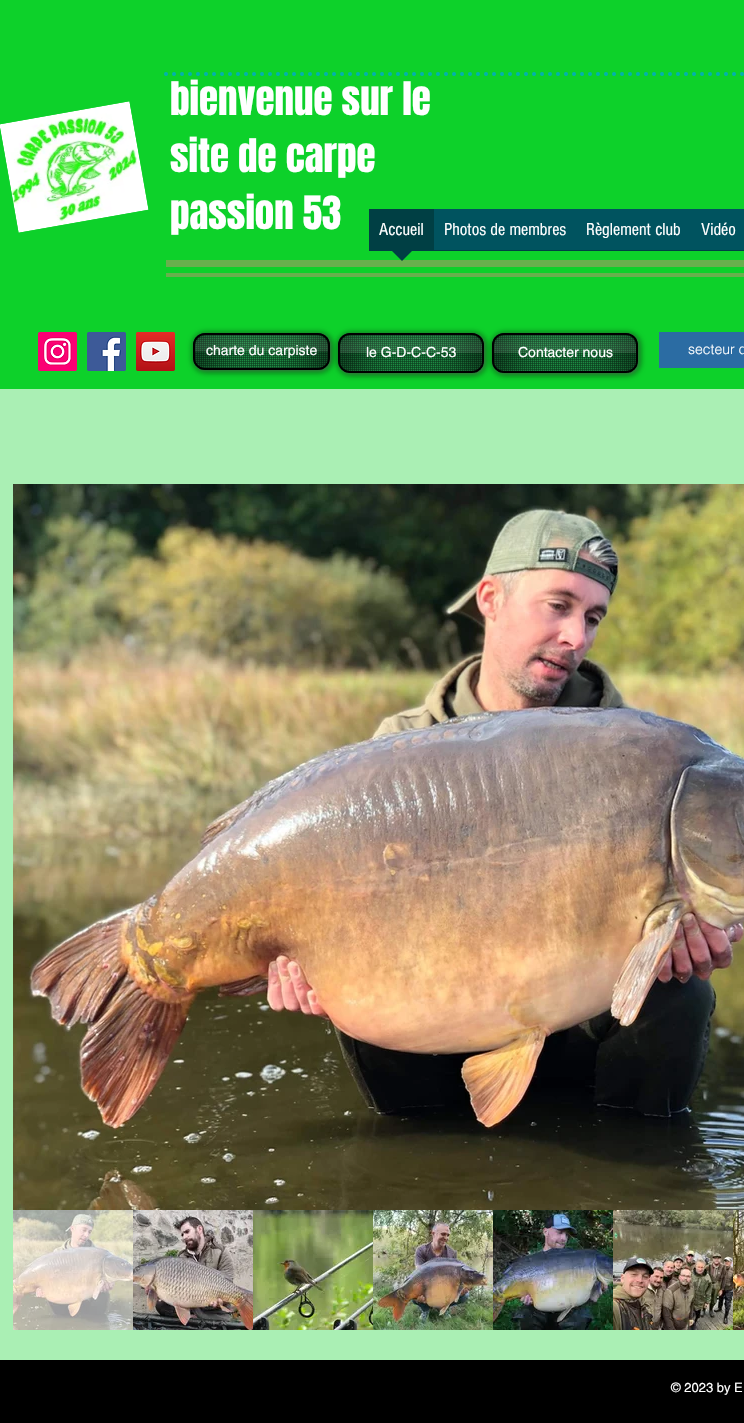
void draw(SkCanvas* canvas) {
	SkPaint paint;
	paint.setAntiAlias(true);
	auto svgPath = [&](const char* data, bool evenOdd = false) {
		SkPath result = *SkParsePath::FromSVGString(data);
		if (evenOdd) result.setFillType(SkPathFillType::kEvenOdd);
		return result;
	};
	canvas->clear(0xff0dd12a);
	paint.setStroke(true);
	paint.setStrokeWidth(4);
	paint.setStrokeCap(SkPaint::kRound_Cap);
	paint.setColor(0xff01b1af);
	paint.setPathEffect(SkDashPathEffect::Make({{0, 8}}, 0));
	canvas->drawPath(svgPath("M166 74H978"), paint);
	paint.setPathEffect(nullptr);
	canvas->drawImageRect(SkImages::DeferredFromEncodedData(SkData::MakeFromFileName("img1.png")), SkRect::MakeXYWH(0, 101, 149, 132), SkSamplingOptions());
	SkFont f1(fontMgr->matchFamilyStyle("Anton", SkFontStyle::Normal()), 39);
	f1.setSubpixel(true);
	paint.setStroke(false);
	paint.setColor(0xffffffff);
	canvas->drawString("bienvenue sur le", 170, 115, f1, paint);
	canvas->drawString("site de carpe", 170, 172, f1, paint);
	canvas->drawString("passion 53", 170, 229, f1, paint);
	paint.setColor(0xff00535f);
	canvas->drawRect(SkRect::MakeXYWH(434, 209, 310, 41), paint);
	paint.setColor(0xff003f44);
	canvas->drawRect(SkRect::MakeXYWH(369, 250, 375, 1), paint);
	canvas->drawRect(SkRect::MakeXYWH(369, 209, 65, 41), paint);
	SkFont f2(fontMgr->matchFamilyStyle("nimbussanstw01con", SkFontStyle::Normal()), 18);
	f2.setSubpixel(true);
	paint.setColor(0xffffffff);
	canvas->drawString("Accueil", 379, 235, f2, paint);
	paint.setColor(0xff68b04d);
	canvas->drawRect(SkRect::MakeXYWH(166, 260, 578, 7), paint);
	paint.setColor(0xff003f44);
	canvas->drawPath(svgPath("M391 250H413L402 261Z"), paint);
	paint.setColor(0xffffffff);
	canvas->drawString("Photos de membres", 444, 235, f2, paint);
	canvas->drawString("Règlement club", 586, 235, f2, paint);
	canvas->drawString("Vidéo", 701, 235, f2, paint);
	paint.setColor(0xff68b04d);
	canvas->drawRect(SkRect::MakeXYWH(166, 273, 578, 4), paint);
	canvas->drawImageRect(SkImages::DeferredFromEncodedData(SkData::MakeFromFileName("img2.png")), SkRect::MakeXYWH(38, 332, 39, 39), SkSamplingOptions());
	canvas->drawImageRect(SkImages::DeferredFromEncodedData(SkData::MakeFromFileName("img3.png")), SkRect::MakeXYWH(87, 332, 39, 39), SkSamplingOptions());
	canvas->drawImageRect(SkImages::DeferredFromEncodedData(SkData::MakeFromFileName("img4.png")), SkRect::MakeXYWH(136, 332, 39, 39), SkSamplingOptions());
	paint.setColor(0x4dffffff);
	paint.setMaskFilter(SkMaskFilter::MakeBlur(kNormal_SkBlurStyle, 1.5));
	canvas->drawRoundRect(SkRect::MakeXYWH(194, 334, 137, 37), 12, 12, paint);
	paint.setMaskFilter(nullptr);
	paint.setColor(0x99000000);
	paint.setMaskFilter(SkMaskFilter::MakeBlur(kNormal_SkBlurStyle, 3));
	canvas->drawRoundRect(SkRect::MakeXYWH(193, 333, 139, 39), 13, 13, paint);
	paint.setMaskFilter(nullptr);
	paint.setColor(0xff1c8a43);
	canvas->drawRoundRect(SkRect::MakeXYWH(193, 333, 137, 37), 12, 12, paint);
	canvas->drawImageRect(SkImages::DeferredFromEncodedData(SkData::MakeFromFileName("img5.png")), SkRect::MakeXYWH(193, 333, 137, 37), SkSamplingOptions());
	paint.setStroke(true);
	paint.setStrokeWidth(2);
	paint.setStrokeCap(SkPaint::kButt_Cap);
	paint.setColor(0xff000000);
	canvas->drawRoundRect(SkRect::MakeXYWH(194, 334, 135, 35), 11, 11, paint);
	canvas->drawImageRect(SkImages::DeferredFromEncodedData(SkData::MakeFromFileName("img6.png")), SkRect::MakeXYWH(195, 335, 46, 33), SkSamplingOptions());
	canvas->drawImageRect(SkImages::DeferredFromEncodedData(SkData::MakeFromFileName("img8.png")), SkRect::MakeXYWH(282, 335, 46, 33), SkSamplingOptions());
	SkFont f3(fontMgr->matchFamilyStyle("helvetica", SkFontStyle::Normal()), 14);
	f3.setSubpixel(true);
	paint.setStroke(false);
	paint.setColor(0xffffffff);
	canvas->drawString("charte du carpiste", 206, 355, f3, paint);
	canvas->drawImageRect(SkImages::DeferredFromEncodedData(SkData::MakeFromFileName("img7.png")), SkRect::MakeXYWH(195, 335, 133, 17), SkSamplingOptions());
	paint.setColor(0x4dffffff);
	paint.setMaskFilter(SkMaskFilter::MakeBlur(kNormal_SkBlurStyle, 1.5));
	canvas->drawRoundRect(SkRect::MakeXYWH(339, 334, 146, 40), 12, 12, paint);
	paint.setMaskFilter(nullptr);
	paint.setColor(0x99000000);
	paint.setMaskFilter(SkMaskFilter::MakeBlur(kNormal_SkBlurStyle, 3));
	canvas->drawRoundRect(SkRect::MakeXYWH(338, 333, 148, 42), 13, 13, paint);
	paint.setMaskFilter(nullptr);
	paint.setColor(0xff1c8a43);
	canvas->drawRoundRect(SkRect::MakeXYWH(338, 333, 146, 40), 12, 12, paint);
	canvas->drawImageRect(SkImages::DeferredFromEncodedData(SkData::MakeFromFileName("img9.png")), SkRect::MakeXYWH(338, 333, 146, 40), SkSamplingOptions());
	paint.setStroke(true);
	paint.setColor(0xff000000);
	canvas->drawRoundRect(SkRect::MakeXYWH(339, 334, 144, 38), 11, 11, paint);
	canvas->drawImageRect(SkImages::DeferredFromEncodedData(SkData::MakeFromFileName("img10.png")), SkRect::MakeXYWH(340, 335, 46, 36), SkSamplingOptions());
	canvas->drawImageRect(SkImages::DeferredFromEncodedData(SkData::MakeFromFileName("img12.png")), SkRect::MakeXYWH(437, 335, 45, 36), SkSamplingOptions());
	paint.setStroke(false);
	paint.setColor(0xffffffff);
	canvas->drawString("le G-D-C-C-53", 366, 357, f3, paint);
	canvas->drawImageRect(SkImages::DeferredFromEncodedData(SkData::MakeFromFileName("img11.png")), SkRect::MakeXYWH(340, 335, 142, 18), SkSamplingOptions());
	paint.setColor(0x4dffffff);
	paint.setMaskFilter(SkMaskFilter::MakeBlur(kNormal_SkBlurStyle, 1.5));
	canvas->drawRoundRect(SkRect::MakeXYWH(493, 334, 146, 40), 12, 12, paint);
	paint.setMaskFilter(nullptr);
	paint.setColor(0x99000000);
	paint.setMaskFilter(SkMaskFilter::MakeBlur(kNormal_SkBlurStyle, 3));
	canvas->drawRoundRect(SkRect::MakeXYWH(492, 333, 148, 42), 13, 13, paint);
	paint.setMaskFilter(nullptr);
	paint.setColor(0xff1c8a43);
	canvas->drawRoundRect(SkRect::MakeXYWH(492, 333, 146, 40), 12, 12, paint);
	canvas->drawImageRect(SkImages::DeferredFromEncodedData(SkData::MakeFromFileName("img13.png")), SkRect::MakeXYWH(492, 333, 146, 40), SkSamplingOptions());
	paint.setStroke(true);
	paint.setColor(0xff000000);
	canvas->drawRoundRect(SkRect::MakeXYWH(493, 334, 144, 38), 11, 11, paint);
	canvas->drawImageRect(SkImages::DeferredFromEncodedData(SkData::MakeFromFileName("img14.png")), SkRect::MakeXYWH(494, 335, 46, 36), SkSamplingOptions());
	canvas->drawImageRect(SkImages::DeferredFromEncodedData(SkData::MakeFromFileName("img16.png")), SkRect::MakeXYWH(591, 335, 45, 36), SkSamplingOptions());
	paint.setStroke(false);
	paint.setColor(0xffffffff);
	canvas->drawString("Contacter nous", 518, 357, f3, paint);
	canvas->drawImageRect(SkImages::DeferredFromEncodedData(SkData::MakeFromFileName("img15.png")), SkRect::MakeXYWH(494, 335, 142, 18), SkSamplingOptions());
	paint.setColor(0xff2b6ca3);
	canvas->drawRect(SkRect::MakeXYWH(659, 332, 85, 36), paint);
	SkFont f4(fontMgr->matchFamilyStyle("helvetica", SkFontStyle(300, SkFontStyle::kNormal_Width, SkFontStyle::kUpright_Slant)), 14);
	f4.setSubpixel(true);
	paint.setColor(0xffffffff);
	canvas->drawString("secteur d", 688, 354, f4, paint);
	paint.setColor(0xffaaefb4);
	canvas->drawRect(SkRect::MakeXYWH(0, 389, 744, 971), paint);
	canvas->drawImageRect(SkImages::DeferredFromEncodedData(SkData::MakeFromFileName("img17.png")), SkRect::MakeXYWH(13, 484, 731, 726), SkSamplingOptions());
	canvas->drawImageRect(SkImages::DeferredFromEncodedData(SkData::MakeFromFileName("img18.png")), SkRect::MakeXYWH(13, 1210, 120, 120), SkSamplingOptions());
	canvas->drawImageRect(SkImages::DeferredFromEncodedData(SkData::MakeFromFileName("img19.png")), SkRect::MakeXYWH(133, 1210, 120, 120), SkSamplingOptions());
	canvas->drawImageRect(SkImages::DeferredFromEncodedData(SkData::MakeFromFileName("img20.png")), SkRect::MakeXYWH(253, 1210, 120, 120), SkSamplingOptions());
	canvas->drawImageRect(SkImages::DeferredFromEncodedData(SkData::MakeFromFileName("img21.png")), SkRect::MakeXYWH(373, 1210, 120, 120), SkSamplingOptions());
	canvas->drawImageRect(SkImages::DeferredFromEncodedData(SkData::MakeFromFileName("img22.png")), SkRect::MakeXYWH(493, 1210, 120, 120), SkSamplingOptions());
	canvas->drawImageRect(SkImages::DeferredFromEncodedData(SkData::MakeFromFileName("img23.png")), SkRect::MakeXYWH(613, 1210, 120, 120), SkSamplingOptions());
	canvas->drawImageRect(SkImages::DeferredFromEncodedData(SkData::MakeFromFileName("img24.png")), SkRect::MakeXYWH(733, 1210, 11, 120), SkSamplingOptions());
	paint.setColor(0xff000000);
	canvas->drawRect(SkRect::MakeXYWH(0, 1360, 744, 63), paint);
	SkFont f5(fontMgr->matchFamilyStyle("helvetica", SkFontStyle::Normal()), 13);
	f5.setSubpixel(true);
	paint.setColor(0xffffffff);
	canvas->drawString("© 2023 by E", 671, 1392, f5, paint);
}
